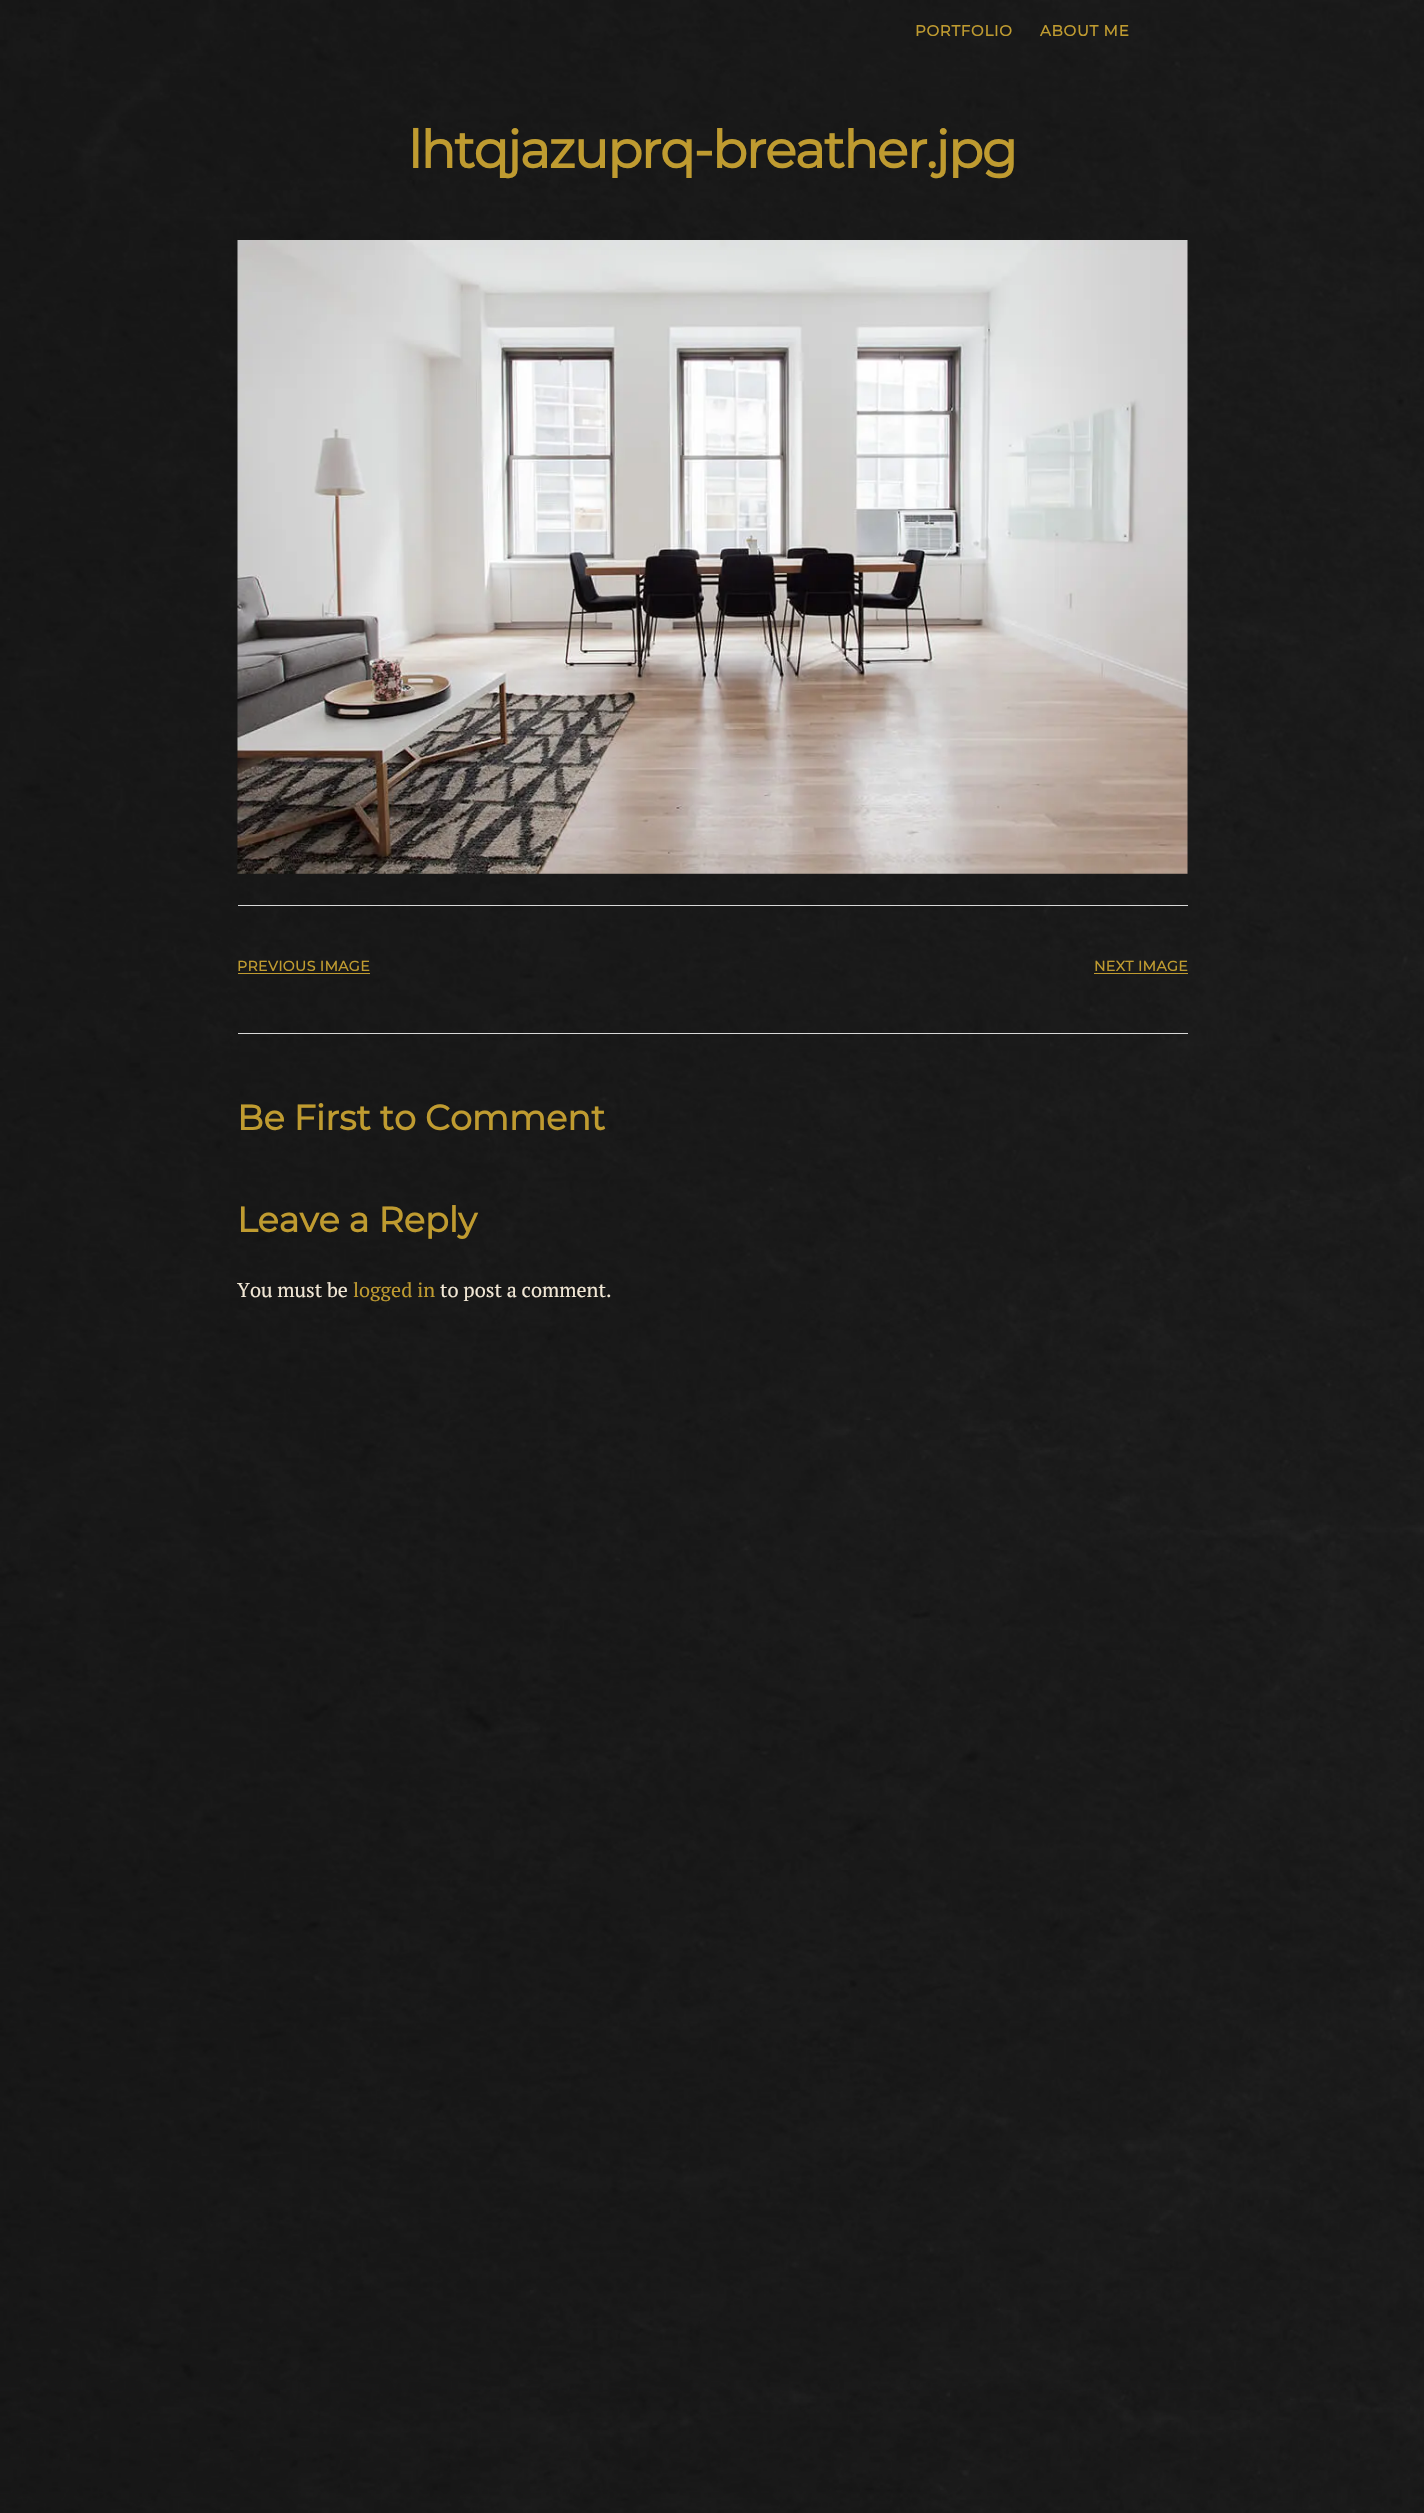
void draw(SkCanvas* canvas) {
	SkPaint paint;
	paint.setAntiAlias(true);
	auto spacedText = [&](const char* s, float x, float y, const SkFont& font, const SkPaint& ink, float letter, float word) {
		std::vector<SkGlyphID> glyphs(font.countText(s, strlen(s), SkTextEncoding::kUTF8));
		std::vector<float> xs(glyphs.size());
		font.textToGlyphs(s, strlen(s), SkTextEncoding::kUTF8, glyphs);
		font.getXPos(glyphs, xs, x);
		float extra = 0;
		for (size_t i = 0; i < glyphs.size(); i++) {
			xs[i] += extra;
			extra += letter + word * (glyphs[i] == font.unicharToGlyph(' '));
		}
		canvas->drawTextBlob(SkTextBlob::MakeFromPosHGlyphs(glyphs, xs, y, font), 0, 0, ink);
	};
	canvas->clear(0xffffffff);
	canvas->drawImageRect(SkImages::DeferredFromEncodedData(SkData::MakeFromFileName("img1.png")), SkRect::MakeXYWH(0, 0, 1424, 2513), SkSamplingOptions());
	SkFont f1(fontMgr->matchFamilyStyle("Montserrat", SkFontStyle::Bold()), 15);
	f1.setSubpixel(true);
	paint.setColor(0xffbf9b30);
	spacedText("PORTFOLIO", 915, 36, f1, paint, 0.75, 0);
	spacedText("ABOUT ME", 1040, 36, f1, paint, 0.75, 0);
	SkFont f2(fontMgr->matchFamilyStyle("Montserrat", SkFontStyle::Bold()), 52);
	f2.setSubpixel(true);
	spacedText("lhtqjazuprq-breather.jpg", 408, 168, f2, paint, -1.6, 0);
	canvas->drawImageRect(SkImages::DeferredFromEncodedData(SkData::MakeFromFileName("img2.png")), SkRect::MakeXYWH(237, 240, 951, 634), SkSamplingOptions());
	paint.setColor(0xffd9d9d9);
	canvas->drawRect(SkRect::MakeXYWH(238, 905, 950, 1), paint);
	canvas->drawRect(SkRect::MakeXYWH(238, 1033, 950, 1), paint);
	SkFont f3(fontMgr->matchFamilyStyle("Montserrat", SkFontStyle::Bold()), 14.1);
	f3.setSubpixel(true);
	paint.setColor(0xffbf9b30);
	spacedText("PREVIOUS IMAGE", 237, 971, f3, paint, 0.4, 0);
	canvas->drawRect(SkRect::MakeXYWH(238, 973, 132, 1), paint);
	spacedText("NEXT IMAGE", 1094, 971, f3, paint, 0.4, 0);
	canvas->drawRect(SkRect::MakeXYWH(1094, 973, 94, 1), paint);
	SkFont f4(fontMgr->matchFamilyStyle("Montserrat", SkFontStyle::Bold()), 35);
	f4.setSubpixel(true);
	canvas->drawString("Be First to Comment", 237, 1130, f4, paint);
	canvas->drawString("Leave a Reply", 237, 1232, f4, paint);
	SkFont f5(fontMgr->matchFamilyStyle("PT Serif", SkFontStyle::Normal()), 20);
	f5.setSubpixel(true);
	paint.setColor(0xfff1e7d5);
	canvas->drawString("You must be", 237, 1297, f5, paint);
	paint.setColor(0xffbf9b30);
	canvas->drawString("logged in", 353, 1297, f5, paint);
	paint.setColor(0xfff1e7d5);
	canvas->drawString("to post a comment.", 440, 1297, f5, paint);
}
